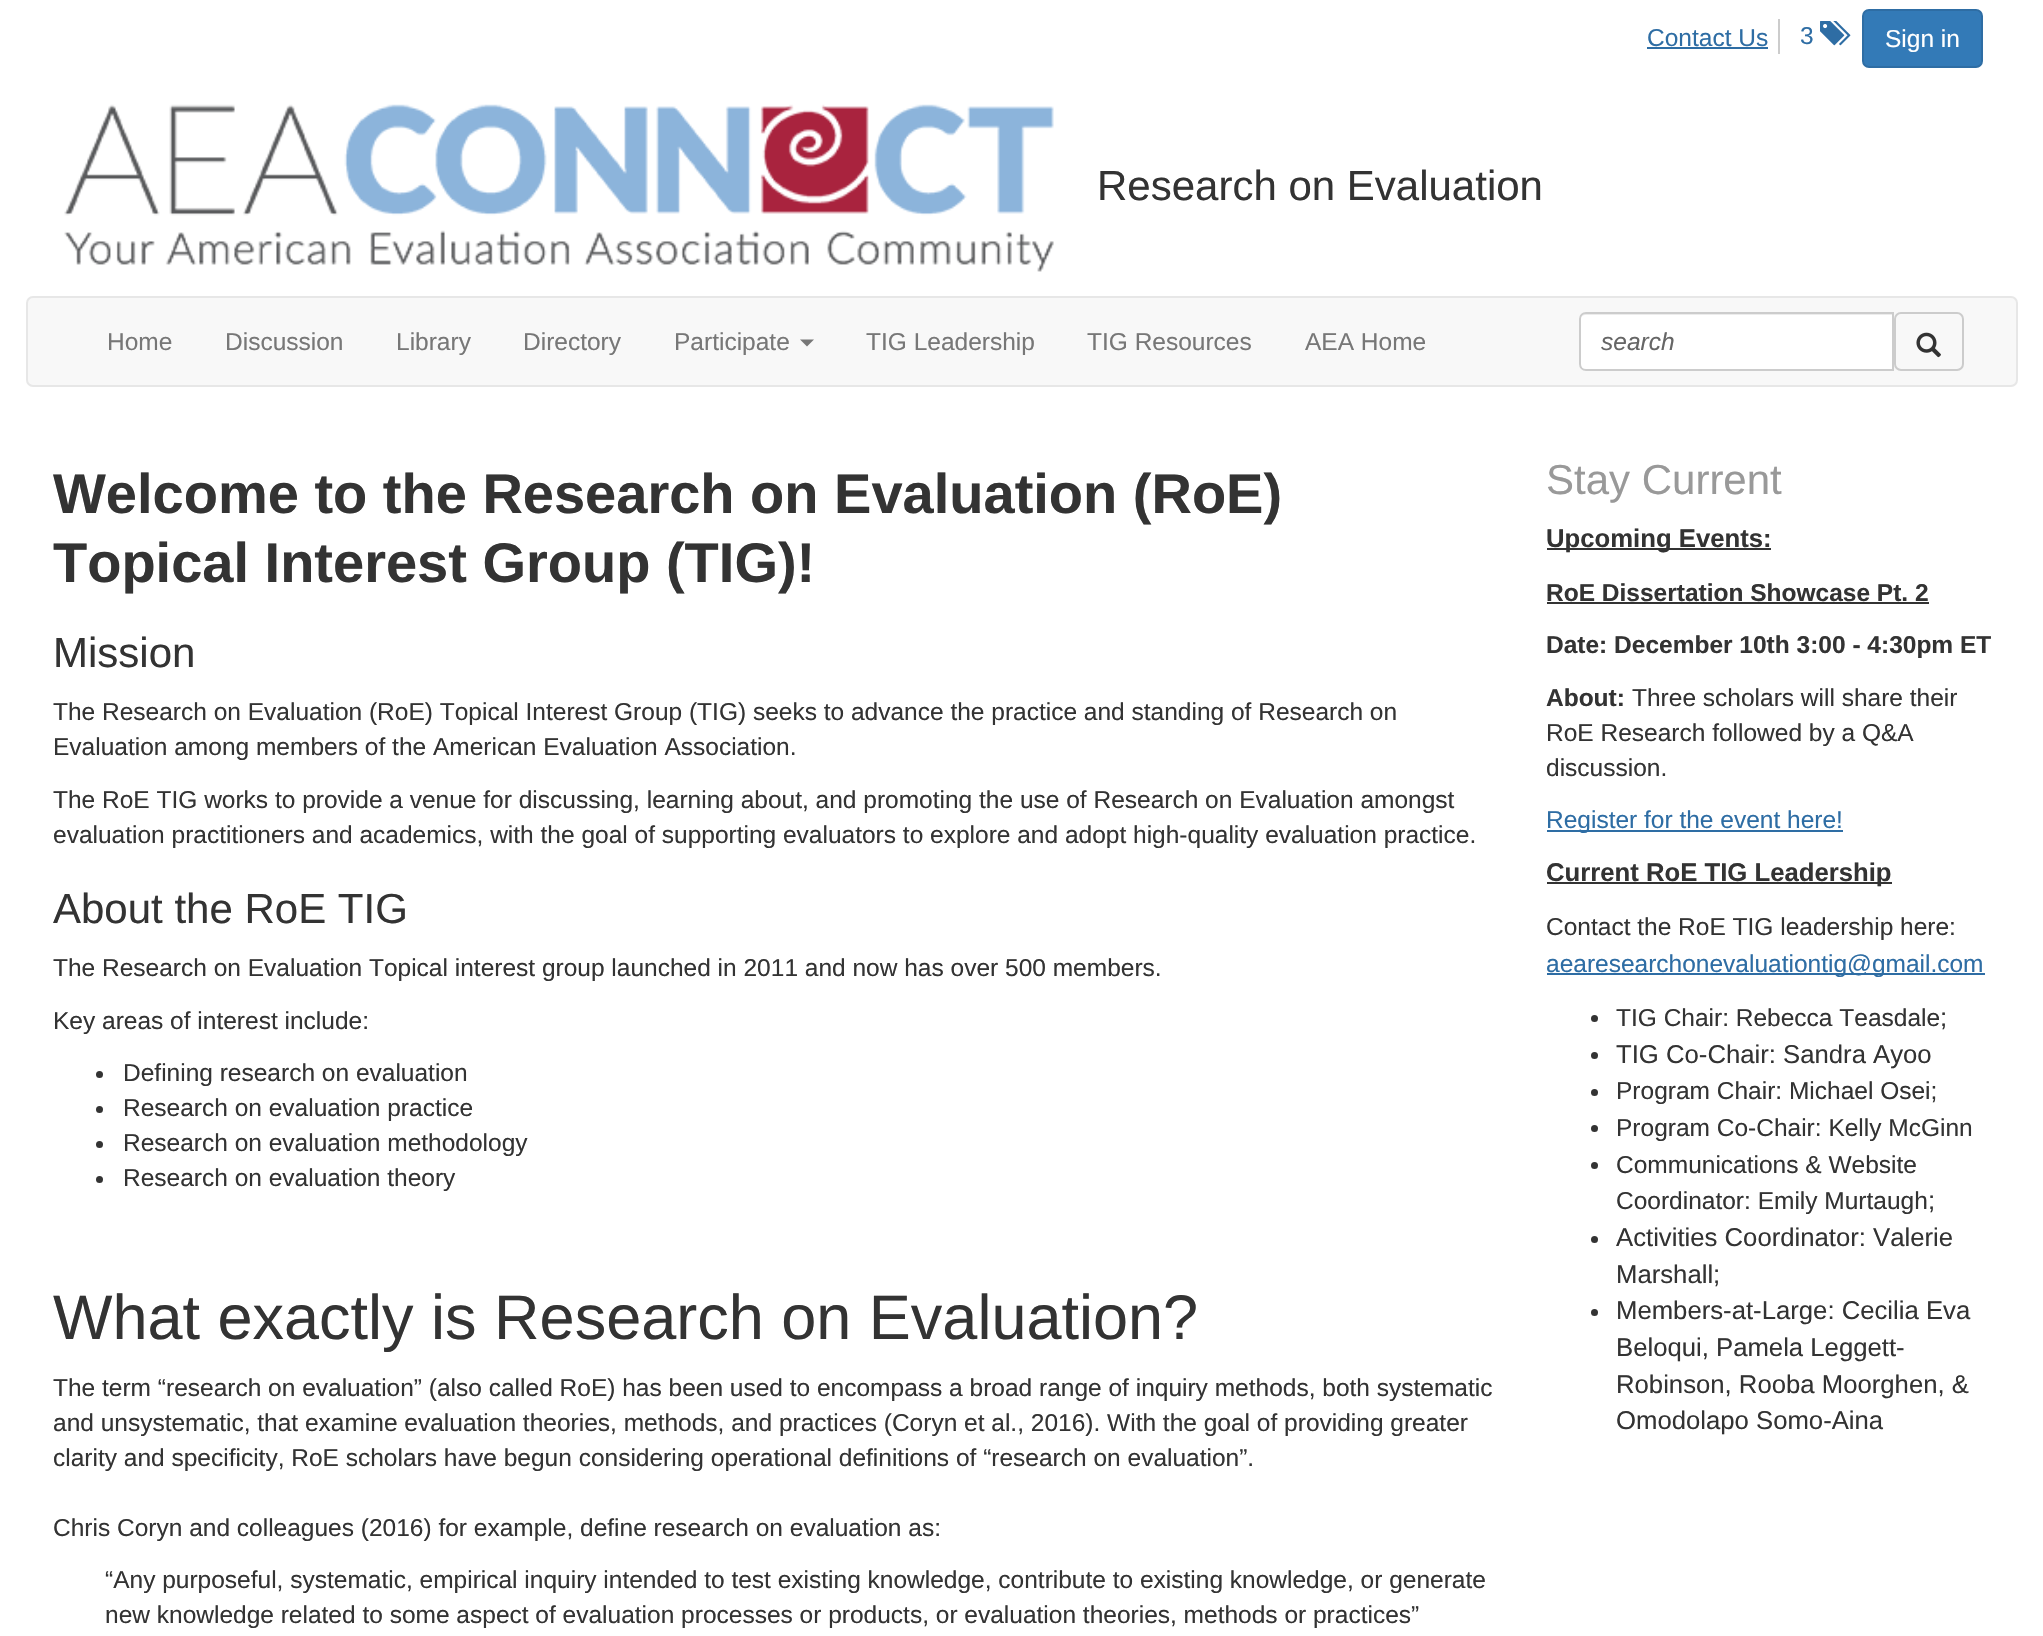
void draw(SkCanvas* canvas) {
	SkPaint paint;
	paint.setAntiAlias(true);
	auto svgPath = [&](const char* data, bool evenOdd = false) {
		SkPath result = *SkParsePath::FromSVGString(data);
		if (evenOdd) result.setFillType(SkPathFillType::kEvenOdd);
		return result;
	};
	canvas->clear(0xffffffff);
	paint.setColor(0xffcccccc);
	canvas->drawRect(SkRect::MakeXYWH(1778, 19, 2, 35), paint);
	SkFont f1(fontMgr->matchFamilyStyle("Liberation Sans", SkFontStyle::Normal()), 24.5);
	f1.setSubpixel(true);
	paint.setColor(0xff2e6da4);
	canvas->drawString("Contact Us", 1647, 46, f1, paint);
	canvas->drawRect(SkRect::MakeXYWH(1647, 47, 121, 2), paint);
	canvas->drawString("3", 1800, 44, f1, paint);
	canvas->drawImageRect(SkImages::DeferredFromEncodedData(SkData::MakeFromFileName("img1.png")), SkRect::MakeXYWH(1820, 21, 31, 25), SkSamplingOptions());
	paint.setColor(0xff337ab7);
	canvas->drawRoundRect(SkRect::MakeXYWH(1863, 10, 119, 57), 6, 6, paint);
	paint.setStroke(true);
	paint.setStrokeWidth(2);
	paint.setColor(0xff2e6da4);
	canvas->drawRoundRect(SkRect::MakeXYWH(1863, 10, 119, 57), 6, 6, paint);
	paint.setStroke(false);
	paint.setColor(0xffffffff);
	canvas->drawString("Sign in", 1885, 47, f1, paint);
	canvas->drawImageRect(SkImages::DeferredFromEncodedData(SkData::MakeFromFileName("img2.png")), SkRect::MakeXYWH(64, 104, 990, 168), SkSamplingOptions());
	SkFont f2(fontMgr->matchFamilyStyle("Liberation Sans", SkFontStyle::Normal()), 42);
	f2.setSubpixel(true);
	paint.setColor(0xff333333);
	canvas->drawString("Research on Evaluation", 1097, 200, f2, paint);
	paint.setColor(0xfff8f8f8);
	canvas->drawRoundRect(SkRect::MakeXYWH(27, 297, 1990, 89), 6, 6, paint);
	paint.setStroke(true);
	paint.setColor(0xffe7e7e7);
	canvas->drawRoundRect(SkRect::MakeXYWH(27, 297, 1990, 89), 6, 6, paint);
	paint.setStroke(false);
	paint.setColor(0xff777777);
	canvas->drawString("Home", 107, 350, f1, paint);
	canvas->drawString("Discussion", 225, 350, f1, paint);
	canvas->drawString("Library", 396, 350, f1, paint);
	canvas->drawString("Directory", 523, 350, f1, paint);
	canvas->drawString("Participate", 674, 350, f1, paint);
	canvas->drawPath(svgPath("M800 339.5H814L807 346.5Z"), paint);
	canvas->drawString("TIG Leadership", 866, 350, f1, paint);
	canvas->drawString("TIG Resources", 1087, 350, f1, paint);
	canvas->drawString("AEA Home", 1305, 350, f1, paint);
	paint.setColor(0xffffffff);
	canvas->drawPath(svgPath("M1586 312H1894V371H1586C1582 371 1579 368 1579 364V319C1579 315 1582 312 1586 312Z"), paint);
	paint.setColor(0xffececec);
	canvas->drawPath(svgPath("M1586 315H1892V313H1584C1580 314 1580 317 1580 320C1580 317 1583 315 1586 315Z"), paint);
	paint.setStroke(true);
	paint.setColor(0xffcccccc);
	canvas->drawPath(svgPath("M1586 313H1893V370H1586C1582.5 370 1580 367.5 1580 364V319C1580 315.5 1582.5 313 1586 313Z"), paint);
	SkFont f3(fontMgr->matchFamilyStyle("Liberation Sans", SkFontStyle::Italic()), 24.5);
	f3.setSubpixel(true);
	paint.setStroke(false);
	paint.setColor(0xff666666);
	canvas->drawString("search", 1601, 350, f3, paint);
	paint.setStroke(true);
	paint.setColor(0xffcccccc);
	canvas->drawRoundRect(SkRect::MakeXYWH(1895, 313, 68, 57), 6, 6, paint);
	canvas->drawImageRect(SkImages::DeferredFromEncodedData(SkData::MakeFromFileName("img3.png")), SkRect::MakeXYWH(1916, 332, 25, 26), SkSamplingOptions());
	SkFont f4(fontMgr->matchFamilyStyle("Liberation Sans", SkFontStyle::Bold()), 56);
	f4.setSubpixel(true);
	paint.setStroke(false);
	paint.setColor(0xff333333);
	canvas->drawString("Welcome to the Research on Evaluation (RoE)", 53, 513, f4, paint);
	canvas->drawString("Topical Interest Group (TIG)!", 53, 582, f4, paint);
	canvas->drawString("Mission", 53, 667, f2, paint);
	canvas->drawString("The Research on Evaluation (RoE) Topical Interest Group (TIG) seeks to advance the practice and standing of Research on", 53, 720, f1, paint);
	canvas->drawString("Evaluation among members of the American Evaluation Association.", 53, 755, f1, paint);
	canvas->drawString("The RoE TIG works to provide a venue for discussing, learning about, and promoting the use of Research on Evaluation amongst", 53, 808, f1, paint);
	canvas->drawString("evaluation practitioners and academics, with the goal of supporting evaluators to explore and adopt high-quality evaluation practice.", 53, 843, f1, paint);
	canvas->drawString("About the RoE TIG", 53, 923, f2, paint);
	canvas->drawString("The Research on Evaluation Topical interest group launched in 2011 and now has over 500 members.", 53, 976, f1, paint);
	canvas->drawString("Key areas of interest include:", 53, 1029, f1, paint);
	canvas->drawCircle(99.5, 1074.5, 3.5, paint);
	canvas->drawString("Defining research on evaluation", 123, 1081, f1, paint);
	canvas->drawCircle(99.5, 1109.5, 3.5, paint);
	canvas->drawString("Research on evaluation practice", 123, 1116, f1, paint);
	canvas->drawCircle(99.5, 1144.5, 3.5, paint);
	canvas->drawString("Research on evaluation methodology", 123, 1151, f1, paint);
	canvas->drawCircle(99.5, 1179.5, 3.5, paint);
	canvas->drawString("Research on evaluation theory", 123, 1186, f1, paint);
	SkFont f5(fontMgr->matchFamilyStyle("Liberation Sans", SkFontStyle::Normal()), 63);
	f5.setSubpixel(true);
	canvas->drawString("What exactly is Research on Evaluation?", 53, 1339, f5, paint);
	canvas->drawString("The term “research on evaluation” (also called RoE) has been used to encompass a broad range of inquiry methods, both systematic", 53, 1396, f1, paint);
	canvas->drawString("and unsystematic, that examine evaluation theories, methods, and practices (Coryn et al., 2016). With the goal of providing greater", 53, 1431, f1, paint);
	canvas->drawString("clarity and specificity, RoE scholars have begun considering operational definitions of “research on evaluation”.", 53, 1466, f1, paint);
	canvas->drawString("Chris Coryn and colleagues (2016) for example, define research on evaluation as:", 53, 1536, f1, paint);
	canvas->drawString("“Any purposeful, systematic, empirical inquiry intended to test existing knowledge, contribute to existing knowledge, or generate", 105, 1588, f1, paint);
	canvas->drawString("new knowledge related to some aspect of evaluation processes or products, or evaluation theories, methods or practices”", 105, 1623, f1, paint);
	paint.setColor(0xff999999);
	canvas->drawString("Stay Current", 1546, 494, f2, paint);
	paint.setColor(0xff333333);
	canvas->drawRect(SkRect::MakeXYWH(1547, 548, 224, 2), paint);
	SkFont f6(fontMgr->matchFamilyStyle("Liberation Sans", SkFontStyle::Bold()), 25.7);
	f6.setSubpixel(true);
	canvas->drawString("Upcoming Events:", 1546, 547, f6, paint);
	SkFont f7(fontMgr->matchFamilyStyle("Liberation Sans", SkFontStyle::Bold()), 24.5);
	f7.setSubpixel(true);
	canvas->drawString("RoE Dissertation Showcase Pt. 2", 1546, 601, f7, paint);
	canvas->drawRect(SkRect::MakeXYWH(1547, 602, 382, 2), paint);
	canvas->drawString("Date: December 10th 3:00 - 4:30pm ET", 1546, 653, f7, paint);
	canvas->drawString("About:", 1546, 706, f7, paint);
	canvas->drawString("Three scholars will share their", 1632, 706, f1, paint);
	canvas->drawString("RoE Research followed by a Q&A", 1546, 741, f1, paint);
	canvas->drawString("discussion.", 1546, 776, f1, paint);
	paint.setColor(0xff2e6da4);
	canvas->drawRect(SkRect::MakeXYWH(1547, 830, 296, 2), paint);
	canvas->drawString("Register for the event here!", 1546, 828, f1, paint);
	paint.setColor(0xff333333);
	canvas->drawRect(SkRect::MakeXYWH(1547, 882, 345, 2), paint);
	canvas->drawString("Current RoE TIG Leadership", 1546, 881, f6, paint);
	canvas->drawString("Contact the RoE TIG leadership here:", 1546, 935, f1, paint);
	paint.setColor(0xff2e6da4);
	canvas->drawRect(SkRect::MakeXYWH(1547, 973, 438, 2), paint);
	canvas->drawString("aearesearchonevaluationtig@gmail.com", 1546, 972, f1, paint);
	paint.setColor(0xff333333);
	canvas->drawCircle(1594.5, 1018.5, 3.5, paint);
	canvas->drawString("TIG Chair: Rebecca Teasdale", 1616, 1026, f1, paint);
	SkFont f8(fontMgr->matchFamilyStyle("Liberation Sans", SkFontStyle::Normal()), 25.7);
	f8.setSubpixel(true);
	canvas->drawString(";", 1940, 1026, f8, paint);
	canvas->drawCircle(1594.5, 1055.5, 3.5, paint);
	canvas->drawString("TIG Co-Chair: Sandra Ayoo", 1616, 1063, f8, paint);
	canvas->drawCircle(1594.5, 1092.5, 3.5, paint);
	canvas->drawString("Program Chair: Michael Osei;", 1616, 1099, f1, paint);
	canvas->drawCircle(1594.5, 1128.5, 3.5, paint);
	canvas->drawString("Program Co-Chair: Kelly McGinn", 1616, 1136, f1, paint);
	canvas->drawCircle(1594.5, 1165.5, 3.5, paint);
	canvas->drawString("Communications & Website", 1616, 1173, f1, paint);
	canvas->drawString("Coordinator: Emily Murtaugh", 1616, 1209, f1, paint);
	canvas->drawString(";", 1928, 1209, f8, paint);
	canvas->drawCircle(1594.5, 1239.5, 3.5, paint);
	canvas->drawString("Activities Coordinator: Valerie", 1616, 1246, f8, paint);
	canvas->drawString("Marshall;", 1616, 1283, f8, paint);
	canvas->drawCircle(1594.5, 1312.5, 3.5, paint);
	canvas->drawString("Members-at-Large: Cecilia Eva", 1616, 1319, f8, paint);
	canvas->drawString("Beloqui, Pamela Leggett-", 1616, 1356, f8, paint);
	canvas->drawString("Robinson, Rooba Moorghen, &", 1616, 1393, f8, paint);
	canvas->drawString("Omodolapo Somo-Aina", 1616, 1429, f8, paint);
}
